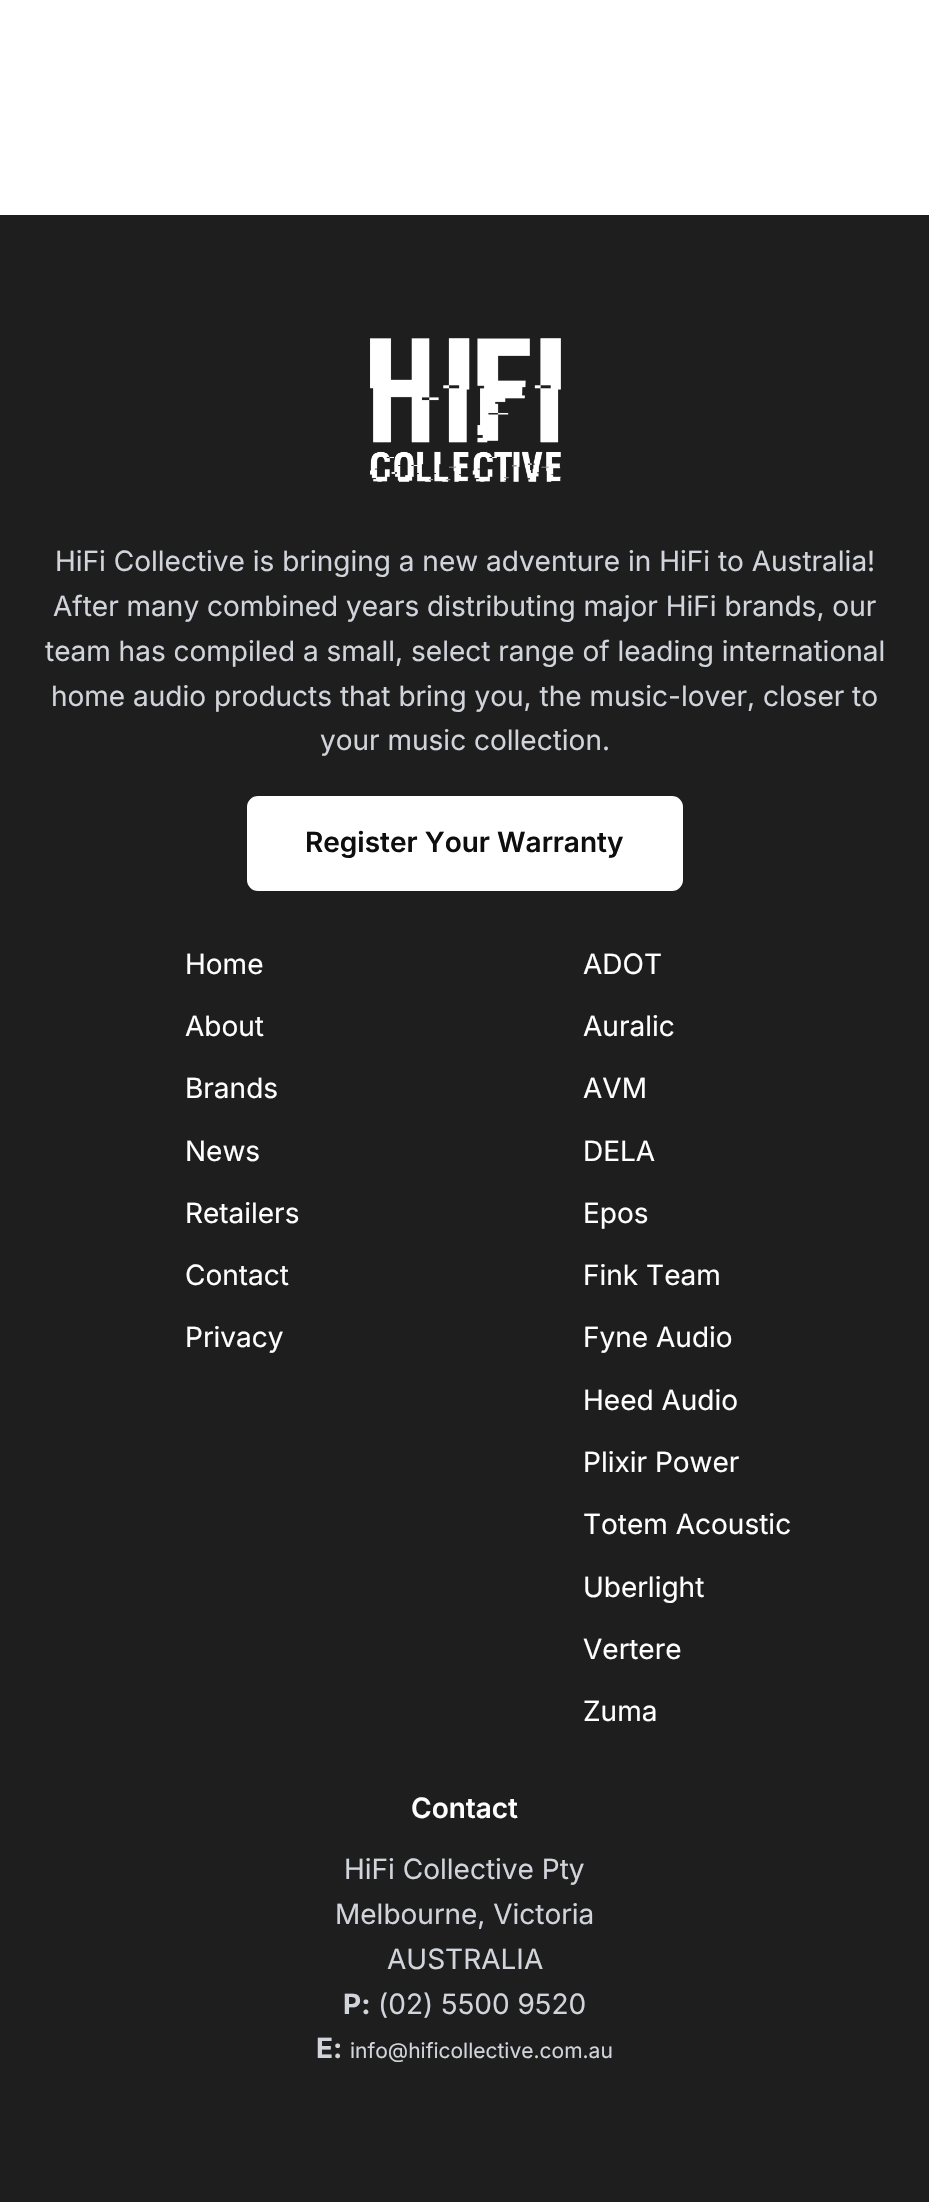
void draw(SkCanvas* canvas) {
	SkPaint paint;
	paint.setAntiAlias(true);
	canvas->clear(0xffffffff);
	paint.setColor(0xff1e1e1e);
	canvas->drawRect(SkRect::MakeXYWH(0, 215, 929, 1987), paint);
	canvas->drawImageRect(SkImages::DeferredFromEncodedData(SkData::MakeFromFileName("img1.png")), SkRect::MakeXYWH(370, 338, 191, 144), SkSamplingOptions());
	SkFont f1(fontMgr->matchFamilyStyle("Inter", SkFontStyle::Normal()), 28);
	f1.setSubpixel(true);
	paint.setColor(0xffd1d5db);
	canvas->drawString("HiFi Collective is bringing a new adventure in HiFi to Australia!", 55, 571, f1, paint);
	canvas->drawString("After many combined years distributing major HiFi brands, our", 53, 616, f1, paint);
	canvas->drawString("team has compiled a small, select range of leading international", 45, 661, f1, paint);
	canvas->drawString("home audio products that bring you, the music-lover, closer to", 51, 706, f1, paint);
	canvas->drawString("your music collection.", 320, 750, f1, paint);
	paint.setColor(0xffffffff);
	canvas->drawRoundRect(SkRect::MakeXYWH(249, 798, 432, 91), 9, 9, paint);
	paint.setStroke(true);
	paint.setStrokeWidth(4);
	canvas->drawRoundRect(SkRect::MakeXYWH(249, 798, 432, 91), 9, 9, paint);
	SkFont f2(fontMgr->matchFamilyStyle("Inter", SkFontStyle(600, SkFontStyle::kNormal_Width, SkFontStyle::kUpright_Slant)), 28);
	f2.setSubpixel(true);
	paint.setStroke(false);
	paint.setColor(0xff0e0e0e);
	canvas->drawString("Register Your Warranty", 305, 852, f2, paint);
	paint.setColor(0xffffffff);
	canvas->drawString("Home", 185, 974, f1, paint);
	canvas->drawString("About", 185, 1036, f1, paint);
	canvas->drawString("Brands", 185, 1098, f1, paint);
	canvas->drawString("News", 185, 1161, f1, paint);
	canvas->drawString("Retailers", 185, 1223, f1, paint);
	canvas->drawString("Contact", 185, 1285, f1, paint);
	canvas->drawString("Privacy", 185, 1347, f1, paint);
	canvas->drawString("ADOT", 583, 974, f1, paint);
	canvas->drawString("Auralic", 583, 1036, f1, paint);
	canvas->drawString("AVM", 583, 1098, f1, paint);
	canvas->drawString("DELA", 583, 1161, f1, paint);
	canvas->drawString("Epos", 583, 1223, f1, paint);
	canvas->drawString("Fink Team", 583, 1285, f1, paint);
	canvas->drawString("Fyne Audio", 583, 1347, f1, paint);
	canvas->drawString("Heed Audio", 583, 1410, f1, paint);
	canvas->drawString("Plixir Power", 583, 1472, f1, paint);
	canvas->drawString("Totem Acoustic", 583, 1534, f1, paint);
	canvas->drawString("Uberlight", 583, 1597, f1, paint);
	canvas->drawString("Vertere", 583, 1659, f1, paint);
	canvas->drawString("Zuma", 583, 1721, f1, paint);
	canvas->drawString("Contact", 411, 1818, f2, paint);
	paint.setColor(0xffd1d5db);
	canvas->drawString("HiFi Collective Pty", 344, 1879, f1, paint);
	canvas->drawString("Melbourne, Victoria", 335, 1924, f1, paint);
	canvas->drawString("AUSTRALIA", 387, 1969, f1, paint);
	SkFont f3(fontMgr->matchFamilyStyle("Inter", SkFontStyle::Bold()), 28);
	f3.setSubpixel(true);
	canvas->drawString("P:", 343, 2014, f3, paint);
	canvas->drawString("(02) 5500 9520", 378, 2014, f1, paint);
	canvas->drawString("E:", 316, 2058, f3, paint);
	SkFont f4(fontMgr->matchFamilyStyle("Inter", SkFontStyle::Normal()), 21);
	f4.setSubpixel(true);
	canvas->drawString("info@hificollective.com.au", 350, 2058, f4, paint);
}
